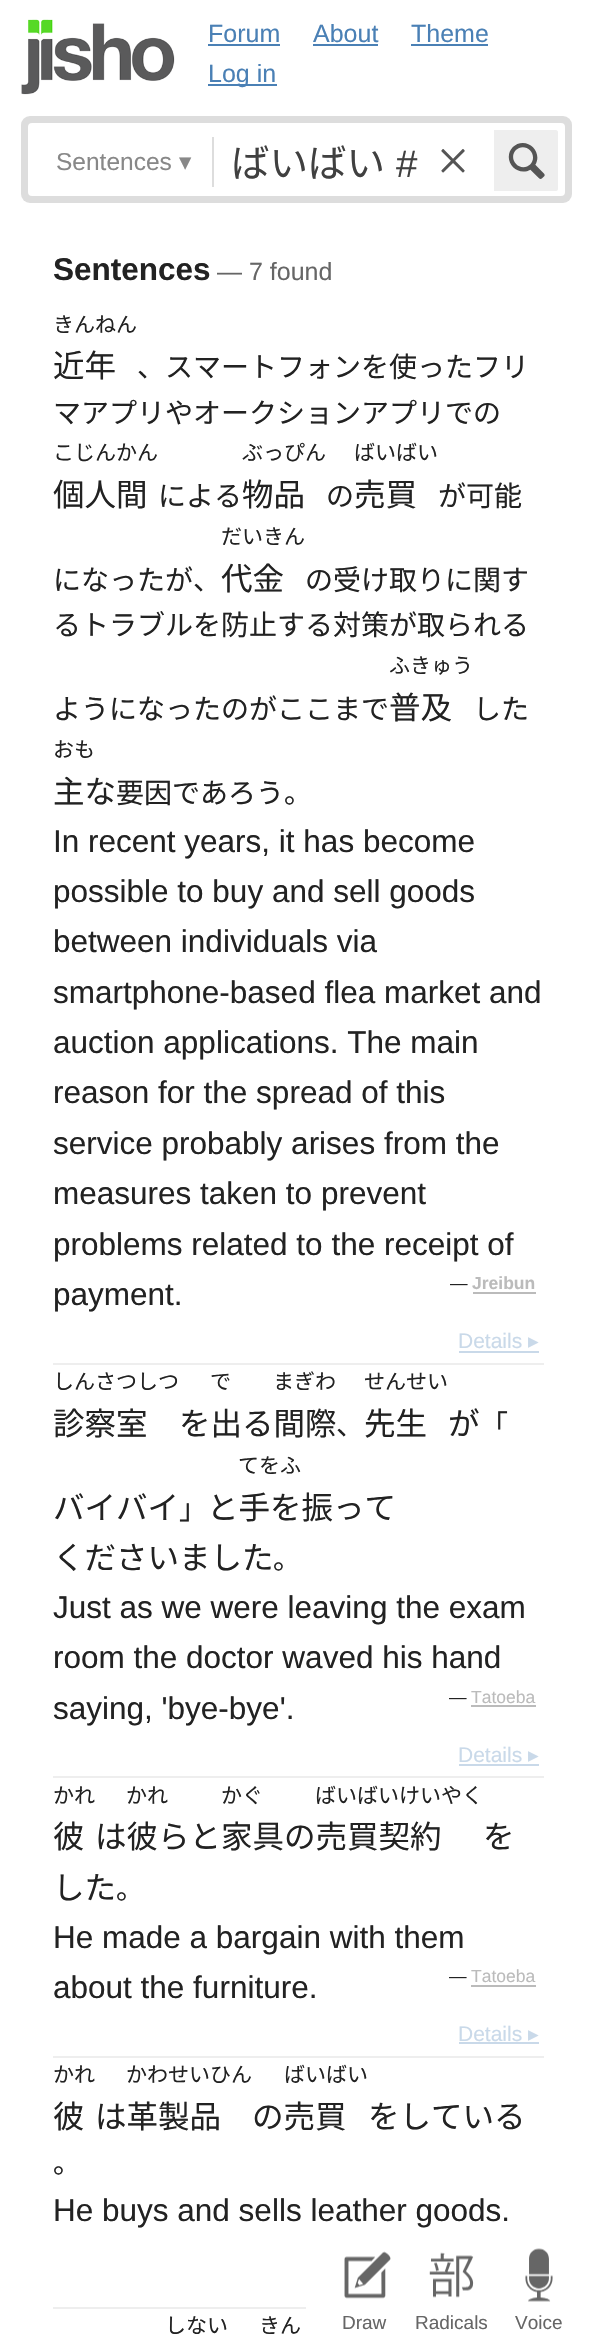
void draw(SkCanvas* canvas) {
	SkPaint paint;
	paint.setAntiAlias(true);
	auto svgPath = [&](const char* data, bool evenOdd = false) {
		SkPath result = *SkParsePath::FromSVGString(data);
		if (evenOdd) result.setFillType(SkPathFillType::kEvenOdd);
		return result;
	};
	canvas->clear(0xffffffff);
	canvas->drawImageRect(SkImages::DeferredFromEncodedData(SkData::MakeFromFileName("img1.png")), SkRect::MakeXYWH(21, 19, 154, 76), SkSamplingOptions());
	SkFont f1(fontMgr->matchFamilyStyle("Liberation Sans", SkFontStyle::Normal()), 25);
	f1.setSubpixel(true);
	paint.setColor(0xff4a80b5);
	canvas->drawString("Forum", 208, 42, f1, paint);
	canvas->drawRect(SkRect::MakeXYWH(208, 44, 72, 2), paint);
	canvas->drawString("About", 313, 42, f1, paint);
	canvas->drawRect(SkRect::MakeXYWH(313, 44, 65, 2), paint);
	canvas->drawString("Theme", 411, 42, f1, paint);
	canvas->drawRect(SkRect::MakeXYWH(411, 44, 77, 2), paint);
	canvas->drawRect(SkRect::MakeXYWH(208, 84, 69, 2), paint);
	canvas->drawString("Log in", 208, 82, f1, paint);
	paint.setColor(0xffdddddd);
	canvas->drawRoundRect(SkRect::MakeXYWH(21, 116, 551, 87), 9, 9, paint);
	paint.setColor(0xffffffff);
	canvas->drawRoundRect(SkRect::MakeXYWH(28, 123, 537, 73), 4, 4, paint);
	paint.setColor(0xffdddddd);
	canvas->drawRect(SkRect::MakeXYWH(212, 137, 2, 50), paint);
	SkFont f2(fontMgr->matchFamilyStyle("Liberation Sans", SkFontStyle::Normal()), 24.5);
	f2.setSubpixel(true);
	paint.setColor(0xff888888);
	canvas->drawString("Sentences", 56, 170, f2, paint);
	SkFont f3(fontMgr->matchFamilyStyle("DejaVu Sans", SkFontStyle::Normal()), 24.5);
	f3.setSubpixel(true);
	canvas->drawString("▾", 179, 170, f3, paint);
	SkFont f4(fontMgr->matchFamilyStyle("Noto Sans CJK JP", SkFontStyle::Normal()), 38.5);
	f4.setSubpixel(true);
	paint.setColor(0xff404040);
	canvas->drawString("ばいばい", 231, 177, f4, paint);
	SkFont f5(fontMgr->matchFamilyStyle("Liberation Sans", SkFontStyle::Normal()), 38.5);
	f5.setSubpixel(true);
	canvas->drawString("#", 396, 177, f5, paint);
	canvas->drawImageRect(SkImages::DeferredFromEncodedData(SkData::MakeFromFileName("img2.png")), SkRect::MakeXYWH(441, 149, 24, 24), SkSamplingOptions());
	paint.setColor(0xffeeeeee);
	canvas->drawPath(svgPath("M494 130H556C557 130 558 131 558 132V189C558 190 557 191 556 191H494Z"), paint);
	canvas->drawImageRect(SkImages::DeferredFromEncodedData(SkData::MakeFromFileName("img3.png")), SkRect::MakeXYWH(508, 143, 37, 36), SkSamplingOptions());
	canvas->drawImageRect(SkImages::DeferredFromEncodedData(SkData::MakeFromFileName("img4.png")), SkRect::MakeXYWH(344, 2251, 47, 48), SkSamplingOptions());
	SkFont f6(fontMgr->matchFamilyStyle("Liberation Sans", SkFontStyle::Normal()), 19);
	f6.setSubpixel(true);
	paint.setColor(0xff666666);
	canvas->drawString("Draw", 342, 2329, f6, paint);
	canvas->drawImageRect(SkImages::DeferredFromEncodedData(SkData::MakeFromFileName("img5.png")), SkRect::MakeXYWH(429, 2252, 45, 46), SkSamplingOptions());
	canvas->drawString("Radicals", 415, 2329, f6, paint);
	canvas->drawImageRect(SkImages::DeferredFromEncodedData(SkData::MakeFromFileName("img6.png")), SkRect::MakeXYWH(525, 2248, 28, 54), SkSamplingOptions());
	canvas->drawString("Voice", 515, 2329, f6, paint);
	SkFont f7(fontMgr->matchFamilyStyle("Liberation Sans", SkFontStyle::Bold()), 31.5);
	f7.setSubpixel(true);
	paint.setColor(0xff222222);
	canvas->drawString("Sentences", 53, 280, f7, paint);
	paint.setColor(0xff666666);
	canvas->drawString("— 7 found", 217, 280, f1, paint);
	paint.setColor(0xffeeeeee);
	canvas->drawRect(SkRect::MakeXYWH(53, 1363, 491, 2), paint);
	SkFont f8(fontMgr->matchFamilyStyle("Noto Sans CJK JP", SkFontStyle::Normal()), 21);
	f8.setSubpixel(true);
	paint.setColor(0xff222222);
	canvas->drawString("きんねん", 53, 332, f8, paint);
	SkFont f9(fontMgr->matchFamilyStyle("Noto Sans CJK JP", SkFontStyle::Normal()), 31.5);
	f9.setSubpixel(true);
	canvas->drawString("近年", 53, 377, f9, paint);
	SkFont f10(fontMgr->matchFamilyStyle("Noto Sans CJK JP", SkFontStyle::Normal()), 28);
	f10.setSubpixel(true);
	canvas->drawString("、スマートフォンを使ったフリ", 137, 377, f10, paint);
	canvas->drawString("マアプリやオークションアプリでの", 53, 423, f10, paint);
	canvas->drawString("こじんかん", 53, 460, f8, paint);
	canvas->drawString("個人間", 53, 506, f9, paint);
	canvas->drawString("による", 158, 506, f10, paint);
	canvas->drawString("ぶっぴん", 242, 460, f8, paint);
	canvas->drawString("物品", 242, 506, f9, paint);
	canvas->drawString("の", 326, 506, f10, paint);
	canvas->drawString("ばいばい", 354, 460, f8, paint);
	canvas->drawString("売買", 354, 506, f9, paint);
	canvas->drawString("が可能", 438, 506, f10, paint);
	canvas->drawString("になったが、", 53, 590, f10, paint);
	canvas->drawString("だいきん", 221, 544, f8, paint);
	canvas->drawString("代金", 221, 590, f9, paint);
	canvas->drawString("の受け取りに関す", 305, 590, f10, paint);
	canvas->drawString("るトラブルを防止する対策が取られる", 53, 635, f10, paint);
	canvas->drawString("ようになったのがここまで", 53, 719, f10, paint);
	canvas->drawString("ふきゅう", 389, 673, f8, paint);
	canvas->drawString("普及", 389, 719, f9, paint);
	canvas->drawString("した", 473, 719, f10, paint);
	canvas->drawString("おも", 53, 757, f8, paint);
	canvas->drawString("主な", 53, 803, f9, paint);
	canvas->drawString("要因であろう。", 116, 803, f10, paint);
	SkFont f11(fontMgr->matchFamilyStyle("Liberation Sans", SkFontStyle::Normal()), 31.5);
	f11.setSubpixel(true);
	canvas->drawString("In recent years, it has become", 53, 852, f11, paint);
	canvas->drawString("possible to buy and sell goods", 53, 902, f11, paint);
	canvas->drawString("between individuals via", 53, 952, f11, paint);
	canvas->drawString("smartphone-based flea market and", 53, 1003, f11, paint);
	canvas->drawString("auction applications. The main", 53, 1053, f11, paint);
	canvas->drawString("reason for the spread of this", 53, 1103, f11, paint);
	canvas->drawString("service probably arises from the", 53, 1154, f11, paint);
	canvas->drawString("measures taken to prevent", 53, 1204, f11, paint);
	canvas->drawString("problems related to the receipt of", 53, 1255, f11, paint);
	canvas->drawString("payment.", 53, 1305, f11, paint);
	SkFont f12(fontMgr->matchFamilyStyle("Liberation Sans", SkFontStyle::Normal()), 17.5);
	f12.setSubpixel(true);
	canvas->drawString("—", 450, 1289, f12, paint);
	SkFont f13(fontMgr->matchFamilyStyle("Liberation Sans", SkFontStyle::Bold()), 17.5);
	f13.setSubpixel(true);
	paint.setColor(0xffbbbbbb);
	canvas->drawString("Jreibun", 472, 1289, f13, paint);
	canvas->drawRect(SkRect::MakeXYWH(473, 1292, 63, 2), paint);
	SkFont f14(fontMgr->matchFamilyStyle("Liberation Sans", SkFontStyle::Normal()), 21);
	f14.setSubpixel(true);
	paint.setColor(0xffc9d9e9);
	canvas->drawString("Details", 458, 1348, f14, paint);
	SkFont f15(fontMgr->matchFamilyStyle("DejaVu Sans", SkFontStyle::Normal()), 21);
	f15.setSubpixel(true);
	canvas->drawString("▸", 528, 1348, f15, paint);
	canvas->drawRect(SkRect::MakeXYWH(459, 1351, 80, 2), paint);
	paint.setColor(0xffeeeeee);
	canvas->drawRect(SkRect::MakeXYWH(53, 1776, 491, 2), paint);
	paint.setColor(0xff222222);
	canvas->drawString("しんさつしつ", 53, 1389, f8, paint);
	canvas->drawString("診察室", 53, 1435, f9, paint);
	canvas->drawString("で", 210, 1389, f8, paint);
	canvas->drawString("まぎわ", 273, 1389, f8, paint);
	canvas->drawString("せんせい", 364, 1389, f8, paint);
	canvas->drawString("先生", 364, 1435, f9, paint);
	canvas->drawString("を出る間際", 179, 1435, f9, paint);
	canvas->drawString("が", 448, 1435, f9, paint);
	canvas->drawString("「", 480, 1435, f10, paint);
	canvas->drawString("、", 336, 1435, f10, paint);
	canvas->drawString("てをふ", 238, 1473, f8, paint);
	canvas->drawString("バイバイ", 53, 1519, f9, paint);
	canvas->drawString("」", 179, 1519, f10, paint);
	canvas->drawString("と手を振って", 207, 1519, f9, paint);
	canvas->drawString("くださいました", 53, 1569, f9, paint);
	canvas->drawString("。", 273, 1569, f10, paint);
	canvas->drawString("Just as we were leaving the exam", 53, 1618, f11, paint);
	canvas->drawString("room the doctor waved his hand", 53, 1668, f11, paint);
	canvas->drawString("saying, 'bye-bye'.", 53, 1719, f11, paint);
	canvas->drawString("—", 449, 1703, f12, paint);
	paint.setColor(0xffbbbbbb);
	canvas->drawString("Tatoeba", 471, 1703, f12, paint);
	canvas->drawRect(SkRect::MakeXYWH(471, 1705, 65, 2), paint);
	paint.setColor(0xffc9d9e9);
	canvas->drawString("Details", 458, 1762, f14, paint);
	canvas->drawString("▸", 528, 1762, f15, paint);
	canvas->drawRect(SkRect::MakeXYWH(459, 1764, 80, 2), paint);
	paint.setColor(0xffeeeeee);
	canvas->drawRect(SkRect::MakeXYWH(53, 2056, 491, 2), paint);
	paint.setColor(0xff222222);
	canvas->drawString("かれ", 53, 1803, f8, paint);
	canvas->drawString("彼", 53, 1848, f9, paint);
	canvas->drawString("かれ", 126, 1803, f8, paint);
	canvas->drawString("かぐ", 221, 1803, f8, paint);
	canvas->drawString("ばいばいけいやく", 315, 1803, f8, paint);
	canvas->drawString("は彼らと家具の売買契約", 95, 1848, f9, paint);
	canvas->drawString("を", 483, 1848, f9, paint);
	canvas->drawString("した", 53, 1899, f9, paint);
	canvas->drawString("。", 116, 1899, f10, paint);
	canvas->drawString("He made a bargain with them", 53, 1948, f11, paint);
	canvas->drawString("about the furniture.", 53, 1998, f11, paint);
	canvas->drawString("—", 449, 1982, f12, paint);
	paint.setColor(0xffbbbbbb);
	canvas->drawString("Tatoeba", 471, 1982, f12, paint);
	canvas->drawRect(SkRect::MakeXYWH(471, 1985, 65, 2), paint);
	paint.setColor(0xffc9d9e9);
	canvas->drawString("Details", 458, 2041, f14, paint);
	canvas->drawString("▸", 528, 2041, f15, paint);
	canvas->drawRect(SkRect::MakeXYWH(459, 2042, 80, 2), paint);
	paint.setColor(0xffeeeeee);
	canvas->drawRect(SkRect::MakeXYWH(53, 2307, 253, 2), paint);
	paint.setColor(0xff222222);
	canvas->drawString("かれ", 53, 2082, f8, paint);
	canvas->drawString("彼", 53, 2128, f9, paint);
	canvas->drawString("かわせいひん", 126, 2082, f8, paint);
	canvas->drawString("ばいばい", 284, 2082, f8, paint);
	canvas->drawString("は革製品", 95, 2128, f9, paint);
	canvas->drawString("の売買", 252, 2128, f9, paint);
	canvas->drawString("をしている", 368, 2128, f9, paint);
	canvas->drawString("。", 53, 2173, f10, paint);
	canvas->drawString("He buys and sells leather goods.", 53, 2221, f11, paint);
	canvas->drawString("しない", 165, 2333, f8, paint);
	canvas->drawString("きん", 259, 2333, f8, paint);
}
